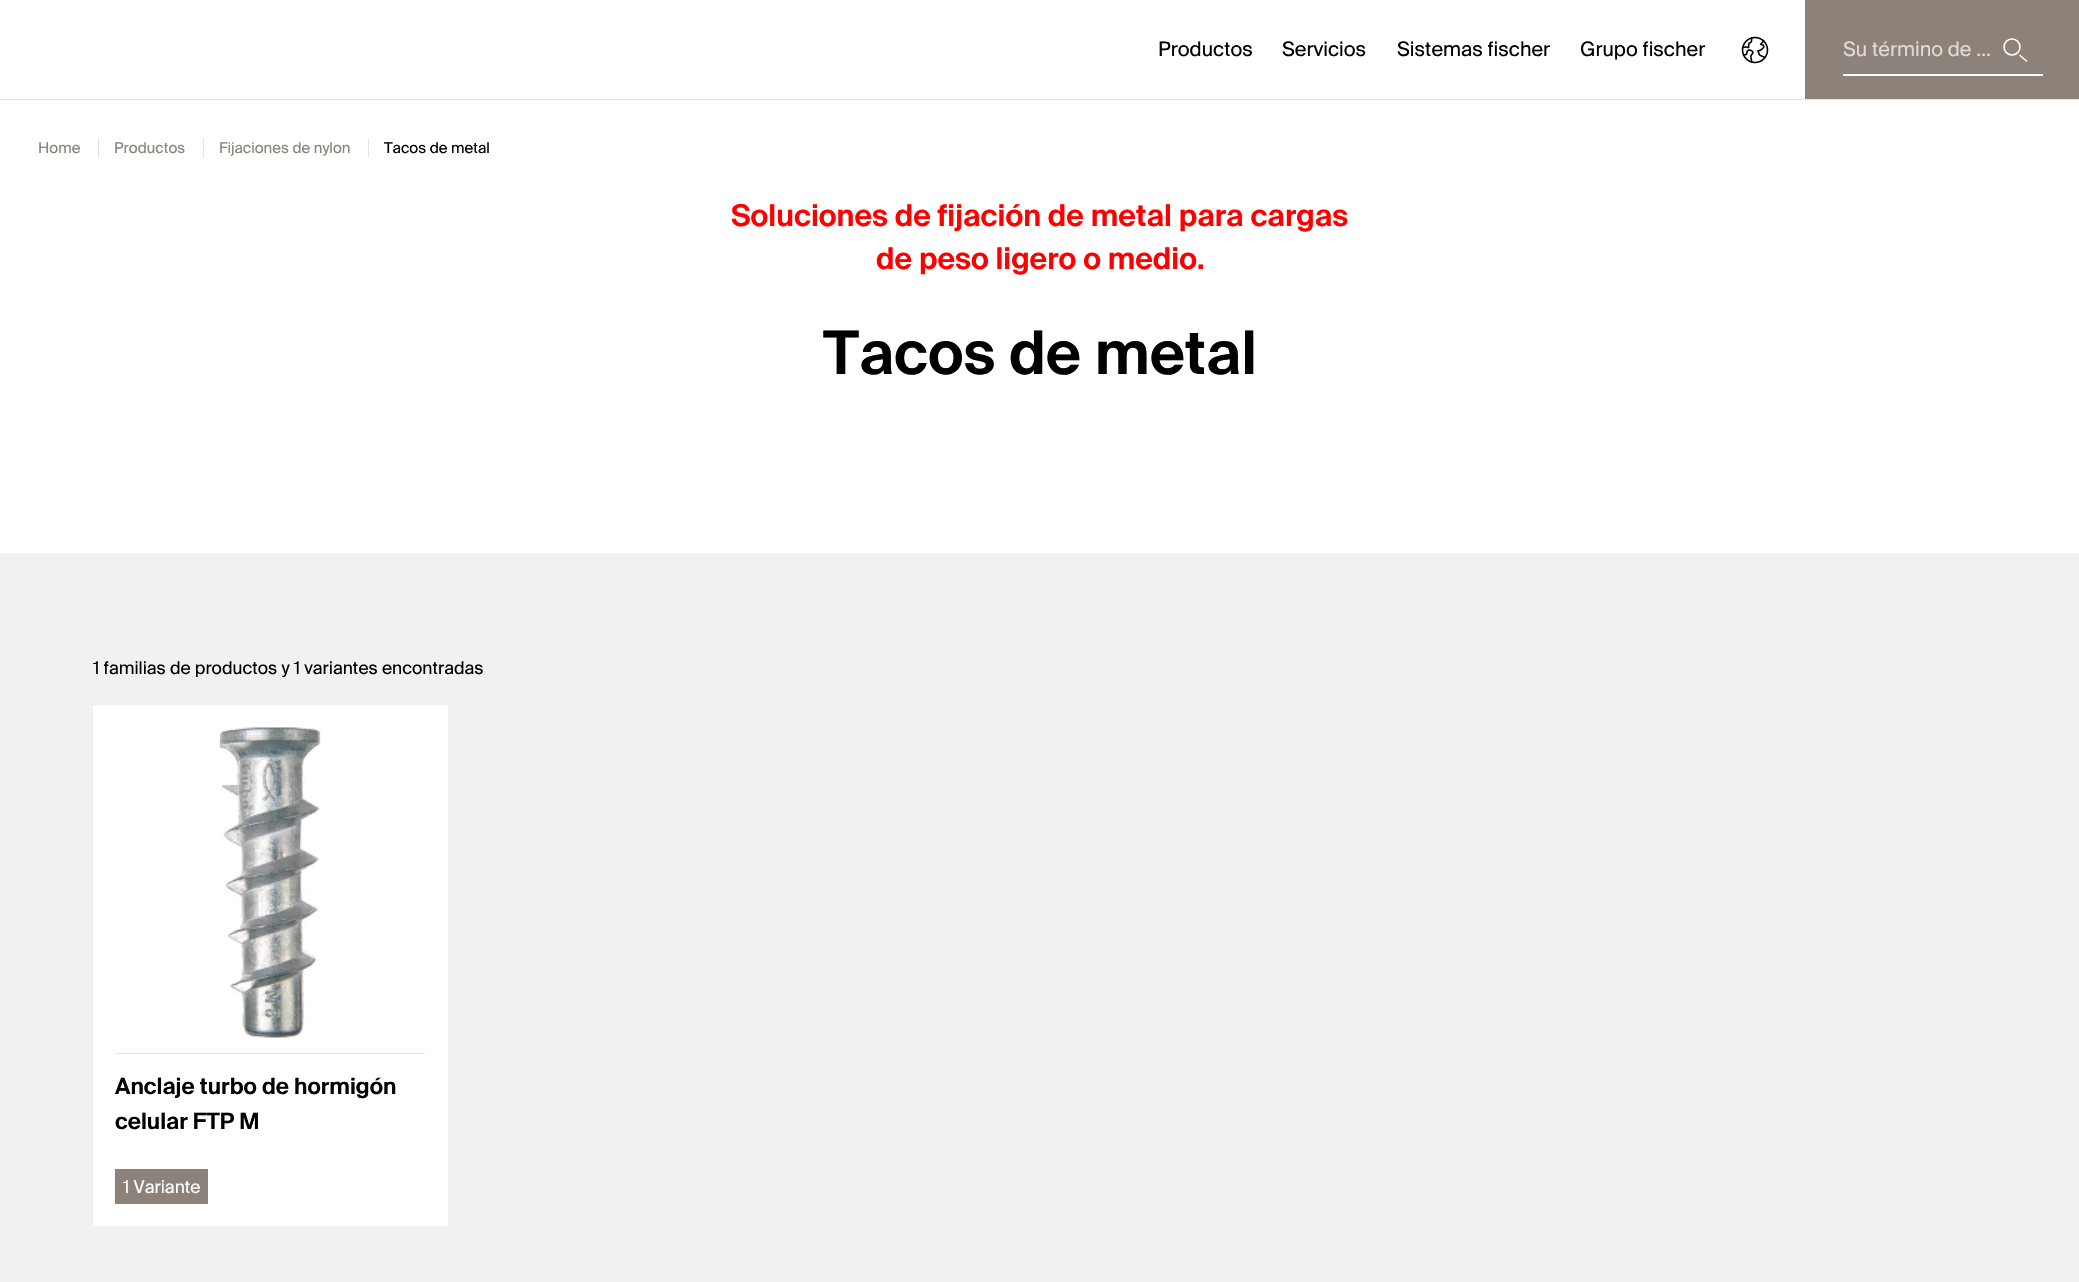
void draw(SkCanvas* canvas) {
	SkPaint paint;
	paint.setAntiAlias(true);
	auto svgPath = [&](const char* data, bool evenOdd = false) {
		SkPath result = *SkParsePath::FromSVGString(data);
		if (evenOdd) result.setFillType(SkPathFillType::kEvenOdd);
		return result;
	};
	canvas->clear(0xffffffff);
	paint.setColor(0xffe5e3df);
	canvas->drawRect(SkRect::MakeXYWH(0, 99, 2079, 1), paint);
	SkFont f1(fontMgr->matchFamilyStyle("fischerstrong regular", SkFontStyle::Normal()), 20);
	f1.setSubpixel(true);
	paint.setColor(0xff000000);
	canvas->drawString("Productos", 1158, 56, f1, paint);
	canvas->drawString("Servicios", 1282, 56, f1, paint);
	canvas->drawString("Sistemas fischer", 1397, 56, f1, paint);
	canvas->drawString("Grupo fischer", 1580, 56, f1, paint);
	canvas->drawImageRect(SkImages::DeferredFromEncodedData(SkData::MakeFromFileName("img1.png")), SkRect::MakeXYWH(1741, 36, 28, 28), SkSamplingOptions());
	paint.setColor(0xff8c827a);
	canvas->drawRect(SkRect::MakeXYWH(1805, 0, 274, 99), paint);
	paint.setColor(0xffdddad7);
	canvas->drawString("Su término de …", 1843, 56, f1, paint);
	paint.setStroke(true);
	paint.setStrokeWidth(1.6);
	paint.setColor(0xffffffff);
	canvas->drawCircle(2012, 47, 8, paint);
	paint.setStrokeCap(SkPaint::kRound_Cap);
	canvas->drawPath(svgPath("M2026.5 61L2020 55.5"), paint);
	paint.setStroke(false);
	canvas->drawRect(SkRect::MakeXYWH(1843, 74, 200, 2), paint);
	paint.setColor(0xffe5e3df);
	canvas->drawRect(SkRect::MakeXYWH(98, 138, 1, 20), paint);
	SkFont f2(fontMgr->matchFamilyStyle("fischerstrong regular", SkFontStyle::Normal()), 15);
	f2.setSubpixel(true);
	paint.setColor(0xff8c827a);
	canvas->drawString("Home", 38, 153, f2, paint);
	paint.setColor(0xffe5e3df);
	canvas->drawRect(SkRect::MakeXYWH(203, 138, 1, 20), paint);
	paint.setColor(0xff8c827a);
	canvas->drawString("Productos", 114, 153, f2, paint);
	paint.setColor(0xffe5e3df);
	canvas->drawRect(SkRect::MakeXYWH(368, 138, 1, 20), paint);
	paint.setColor(0xff8c827a);
	canvas->drawString("Fijaciones de nylon", 219, 153, f2, paint);
	paint.setColor(0xff000000);
	canvas->drawString("Tacos de metal", 384, 153, f2, paint);
	SkFont f3(fontMgr->matchFamilyStyle("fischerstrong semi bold", SkFontStyle(600, SkFontStyle::kNormal_Width, SkFontStyle::kUpright_Slant)), 30);
	f3.setSubpixel(true);
	paint.setColor(0xffff0000);
	canvas->drawString("Soluciones de fijación de metal para cargas", 731, 226, f3, paint);
	canvas->drawString("de peso ligero o medio.", 876, 269, f3, paint);
	SkFont f4(fontMgr->matchFamilyStyle("fischerstrong semi bold", SkFontStyle(600, SkFontStyle::kNormal_Width, SkFontStyle::kUpright_Slant)), 60);
	f4.setSubpixel(true);
	paint.setColor(0xff000000);
	canvas->drawString("Tacos de metal", 823, 374, f4, paint);
	paint.setColor(0xfff2f1ef);
	canvas->drawRect(SkRect::MakeXYWH(0, 553, 2079, 729), paint);
	SkFont f5(fontMgr->matchFamilyStyle("fischerstrong regular", SkFontStyle::Normal()), 17.5);
	f5.setSubpixel(true);
	paint.setColor(0xff000000);
	canvas->drawString("1 familias de productos y 1 variantes encontradas", 93, 674, f5, paint);
	paint.setColor(0xffffffff);
	canvas->drawRect(SkRect::MakeXYWH(93, 705, 355, 521), paint);
	paint.setColor(0xffe5e3df);
	canvas->drawRect(SkRect::MakeXYWH(115, 1053, 310, 1), paint);
	canvas->drawImageRect(SkImages::DeferredFromEncodedData(SkData::MakeFromFileName("img2.png")), SkRect::MakeXYWH(219, 727, 102, 311), SkSamplingOptions());
	SkFont f6(fontMgr->matchFamilyStyle("fischerstrong semi bold", SkFontStyle(600, SkFontStyle::kNormal_Width, SkFontStyle::kUpright_Slant)), 22.5);
	f6.setSubpixel(true);
	paint.setColor(0xff000000);
	canvas->drawString("Anclaje turbo de hormigón", 115, 1094, f6, paint);
	canvas->drawString("celular FTP M", 115, 1129, f6, paint);
	paint.setColor(0xff8c827a);
	canvas->drawRect(SkRect::MakeXYWH(115, 1169, 93, 35), paint);
	paint.setColor(0xffffffff);
	canvas->drawString("1 Variante", 123, 1193, f5, paint);
}
